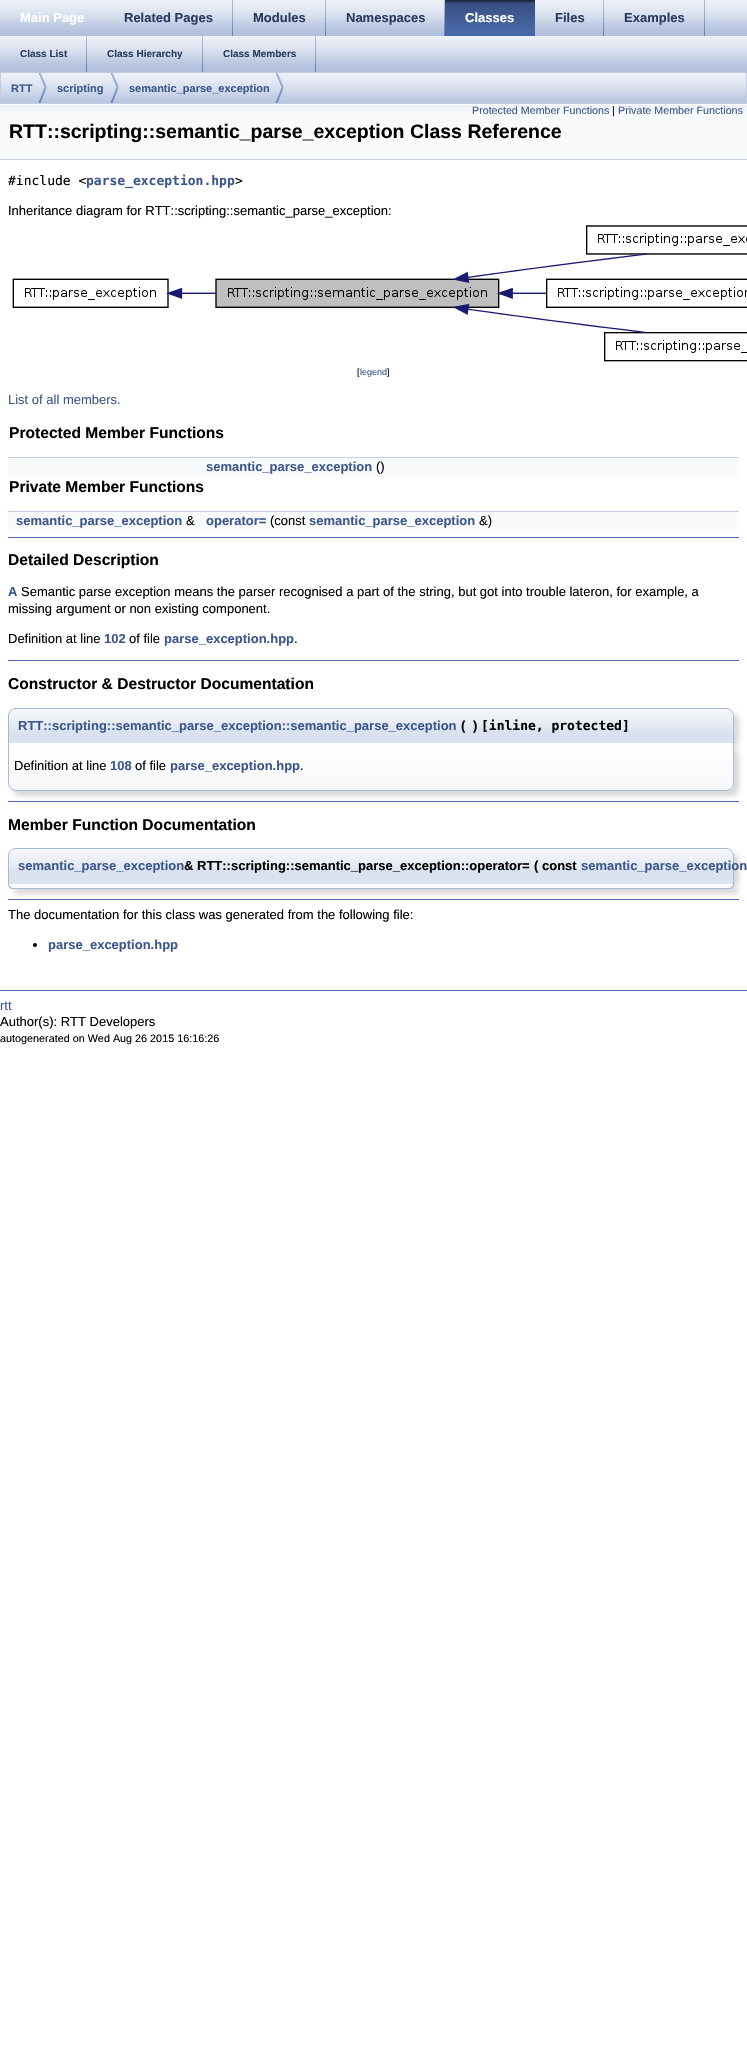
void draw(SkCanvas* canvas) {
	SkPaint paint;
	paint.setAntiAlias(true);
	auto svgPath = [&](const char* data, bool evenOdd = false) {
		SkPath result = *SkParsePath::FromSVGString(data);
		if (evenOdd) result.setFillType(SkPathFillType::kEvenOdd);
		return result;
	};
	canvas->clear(0xffffffff);
	canvas->drawImageRect(SkImages::DeferredFromEncodedData(SkData::MakeFromFileName("img1.png")), SkRect::MakeXYWH(0, 0, 747, 36), SkSamplingOptions());
	SkFont f1(fontMgr->matchFamilyStyle("Liberation Sans", SkFontStyle::Bold()), 13);
	f1.setSubpixel(true);
	paint.setColor(0xffffffff);
	canvas->drawString("Main Page", 20, 22, f1, paint);
	canvas->drawImageRect(SkImages::DeferredFromEncodedData(SkData::MakeFromFileName("img2.png")), SkRect::MakeXYWH(232, 0, 1, 36), SkSamplingOptions());
	paint.setColor(0xff283a5d);
	canvas->drawString("Related Pages", 124, 22, f1, paint);
	canvas->drawImageRect(SkImages::DeferredFromEncodedData(SkData::MakeFromFileName("img2.png")), SkRect::MakeXYWH(325, 0, 1, 36), SkSamplingOptions());
	canvas->drawString("Modules", 253, 22, f1, paint);
	canvas->drawImageRect(SkImages::DeferredFromEncodedData(SkData::MakeFromFileName("img2.png")), SkRect::MakeXYWH(444, 0, 1, 36), SkSamplingOptions());
	canvas->drawString("Namespaces", 346, 22, f1, paint);
	canvas->drawImageRect(SkImages::DeferredFromEncodedData(SkData::MakeFromFileName("img3.png")), SkRect::MakeXYWH(445, 0, 90, 36), SkSamplingOptions());
	paint.setColor(0xffffffff);
	canvas->drawString("Classes", 465, 22, f1, paint);
	canvas->drawImageRect(SkImages::DeferredFromEncodedData(SkData::MakeFromFileName("img2.png")), SkRect::MakeXYWH(603, 0, 1, 36), SkSamplingOptions());
	paint.setColor(0xff283a5d);
	canvas->drawString("Files", 555, 22, f1, paint);
	canvas->drawImageRect(SkImages::DeferredFromEncodedData(SkData::MakeFromFileName("img2.png")), SkRect::MakeXYWH(704, 0, 1, 36), SkSamplingOptions());
	canvas->drawString("Examples", 624, 22, f1, paint);
	canvas->drawImageRect(SkImages::DeferredFromEncodedData(SkData::MakeFromFileName("img1.png")), SkRect::MakeXYWH(0, 36, 747, 36), SkSamplingOptions());
	canvas->drawImageRect(SkImages::DeferredFromEncodedData(SkData::MakeFromFileName("img2.png")), SkRect::MakeXYWH(86, 36, 1, 36), SkSamplingOptions());
	SkFont f2(fontMgr->matchFamilyStyle("Liberation Sans", SkFontStyle::Bold()), 10);
	f2.setSubpixel(true);
	canvas->drawString("Class List", 20, 57, f2, paint);
	canvas->drawImageRect(SkImages::DeferredFromEncodedData(SkData::MakeFromFileName("img2.png")), SkRect::MakeXYWH(202, 36, 1, 36), SkSamplingOptions());
	canvas->drawString("Class Hierarchy", 107, 57, f2, paint);
	canvas->drawImageRect(SkImages::DeferredFromEncodedData(SkData::MakeFromFileName("img2.png")), SkRect::MakeXYWH(315, 36, 1, 36), SkSamplingOptions());
	canvas->drawString("Class Members", 223, 57, f2, paint);
	canvas->drawImageRect(SkImages::DeferredFromEncodedData(SkData::MakeFromFileName("img4.png")), SkRect::MakeXYWH(1, 73, 745, 30), SkSamplingOptions());
	paint.setStroke(true);
	paint.setStrokeWidth(1);
	paint.setColor(0xffc2cde4);
	canvas->drawRect(SkRect::MakeXYWH(0.5, 72.5, 746, 31), paint);
	canvas->drawImageRect(SkImages::DeferredFromEncodedData(SkData::MakeFromFileName("img5.png")), SkRect::MakeXYWH(39, 73, 8, 30), SkSamplingOptions());
	SkFont f3(fontMgr->matchFamilyStyle("Liberation Sans", SkFontStyle::Bold()), 11);
	f3.setSubpixel(true);
	paint.setStroke(false);
	paint.setColor(0xff3d578c);
	canvas->drawString("RTT", 11, 92, f3, paint);
	canvas->drawImageRect(SkImages::DeferredFromEncodedData(SkData::MakeFromFileName("img5.png")), SkRect::MakeXYWH(111, 73, 8, 30), SkSamplingOptions());
	canvas->drawString("scripting", 57, 92, f3, paint);
	canvas->drawImageRect(SkImages::DeferredFromEncodedData(SkData::MakeFromFileName("img5.png")), SkRect::MakeXYWH(276, 73, 8, 30), SkSamplingOptions());
	canvas->drawString("semantic_parse_exception", 129, 92, f3, paint);
	paint.setColor(0xfff9fafc);
	canvas->drawRect(SkRect::MakeXYWH(0, 112, 747, 47), paint);
	canvas->drawImageRect(SkImages::DeferredFromEncodedData(SkData::MakeFromFileName("img6.png")), SkRect::MakeXYWH(0, 104, 747, 8), SkSamplingOptions());
	paint.setColor(0xffc4cfe5);
	canvas->drawRect(SkRect::MakeXYWH(0, 159, 747, 1), paint);
	SkFont f4(fontMgr->matchFamilyStyle("Liberation Sans", SkFontStyle::Normal()), 10.7);
	f4.setSubpixel(true);
	paint.setColor(0xff3d578c);
	canvas->drawString("Protected Member Functions", 472, 114, f4, paint);
	paint.setColor(0xff000000);
	canvas->drawString("|", 612, 114, f4, paint);
	paint.setColor(0xff3d578c);
	canvas->drawString("Private Member Functions", 618, 114, f4, paint);
	SkFont f5(fontMgr->matchFamilyStyle("Liberation Sans", SkFontStyle::Bold()), 19.5);
	f5.setSubpixel(true);
	paint.setColor(0xff000000);
	canvas->drawString("RTT::scripting::semantic_parse_exception Class Reference", 9, 138, f5, paint);
	SkFont f6(fontMgr->matchFamilyStyle("DejaVu Sans Mono", SkFontStyle::Normal()), 13);
	f6.setSubpixel(true);
	canvas->drawString("#include <", 8, 185, f6, paint);
	SkFont f7(fontMgr->matchFamilyStyle("DejaVu Sans Mono", SkFontStyle::Bold()), 13);
	f7.setSubpixel(true);
	paint.setColor(0xff3d578c);
	canvas->drawString("parse_exception.hpp", 86, 185, f7, paint);
	paint.setColor(0xff000000);
	canvas->drawString(">", 235, 185, f6, paint);
	SkFont f8(fontMgr->matchFamilyStyle("Liberation Sans", SkFontStyle::Normal()), 13);
	f8.setSubpixel(true);
	canvas->drawString("Inheritance diagram for RTT::scripting::semantic_parse_exception:", 8, 215, f8, paint);
	canvas->drawImageRect(SkImages::DeferredFromEncodedData(SkData::MakeFromFileName("img7.png")), SkRect::MakeXYWH(12, 225, 735, 137), SkSamplingOptions());
	SkFont f9(fontMgr->matchFamilyStyle("Liberation Sans", SkFontStyle::Normal()), 9);
	f9.setSubpixel(true);
	canvas->drawString("[", 357, 375, f9, paint);
	paint.setColor(0xff3d578c);
	canvas->drawString("legend", 360, 375, f9, paint);
	paint.setColor(0xff000000);
	canvas->drawString("]", 387, 375, f9, paint);
	paint.setColor(0xff3d578c);
	canvas->drawString("List of all members.", 8, 404, f8, paint);
	SkFont f10(fontMgr->matchFamilyStyle("Liberation Sans", SkFontStyle::Bold()), 15.6);
	f10.setSubpixel(true);
	paint.setColor(0xff000000);
	canvas->drawString("Protected Member Functions", 9, 438, f10, paint);
	paint.setColor(0xfff9fafc);
	canvas->drawRect(SkRect::MakeXYWH(8, 458, 731, 18), paint);
	paint.setColor(0xffc4cfe5);
	canvas->drawRect(SkRect::MakeXYWH(8, 457, 731, 1), paint);
	paint.setColor(0xff3d578c);
	canvas->drawString("semantic_parse_exception", 206, 471, f1, paint);
	paint.setColor(0xff000000);
	canvas->drawString("()", 376, 471, f8, paint);
	canvas->drawString("Private Member Functions", 9, 492, f10, paint);
	paint.setColor(0xfff9fafc);
	canvas->drawRect(SkRect::MakeXYWH(8, 512, 731, 18), paint);
	paint.setColor(0xffc4cfe5);
	canvas->drawRect(SkRect::MakeXYWH(8, 511, 731, 1), paint);
	paint.setColor(0xff3d578c);
	canvas->drawString("semantic_parse_exception", 16, 525, f1, paint);
	paint.setColor(0xff000000);
	canvas->drawString("&", 186, 525, f8, paint);
	paint.setColor(0xff3d578c);
	canvas->drawString("operator=", 206, 525, f1, paint);
	paint.setColor(0xff000000);
	canvas->drawString("(const", 270, 525, f8, paint);
	paint.setColor(0xff3d578c);
	canvas->drawString("semantic_parse_exception", 309, 525, f1, paint);
	paint.setColor(0xff000000);
	canvas->drawString("&)", 479, 525, f8, paint);
	paint.setColor(0xff4a6aaa);
	canvas->drawRect(SkRect::MakeXYWH(8, 537, 731, 1), paint);
	paint.setColor(0xff000000);
	canvas->drawString("Detailed Description", 8, 565, f10, paint);
	paint.setColor(0xff3d578c);
	canvas->drawString("A", 8, 596, f1, paint);
	paint.setColor(0xff000000);
	canvas->drawString("Semantic parse exception means the parser recognised a part of the string, but got into trouble lateron, for example, a", 21, 596, f8, paint);
	canvas->drawString("missing argument or non existing component.", 8, 613, f8, paint);
	canvas->drawString("Definition at line", 8, 643, f8, paint);
	paint.setColor(0xff3d578c);
	canvas->drawString("102", 104, 643, f1, paint);
	paint.setColor(0xff000000);
	canvas->drawString("of file", 129, 643, f8, paint);
	paint.setColor(0xff3d578c);
	canvas->drawString("parse_exception.hpp", 164, 643, f1, paint);
	paint.setColor(0xff000000);
	canvas->drawString(".", 294, 643, f8, paint);
	paint.setColor(0xff4a6aaa);
	canvas->drawRect(SkRect::MakeXYWH(8, 660, 731, 1), paint);
	paint.setColor(0xff000000);
	canvas->drawString("Constructor & Destructor Documentation", 8, 689, f10, paint);
	paint.setColor(0x26000000);
	paint.setMaskFilter(SkMaskFilter::MakeBlur(kNormal_SkBlurStyle, 2.5));
	canvas->drawRoundRect(SkRect::MakeXYWH(13, 713, 726, 35), 8, 8, paint);
	paint.setMaskFilter(nullptr);
	paint.setColor(0xffe2e8f2);
	canvas->drawPath(svgPath("M16 708H726C730.5 708 734 711.5 734 716V743H8V716C8 711.5 11.5 708 16 708Z"), paint);
	canvas->drawImageRect(SkImages::DeferredFromEncodedData(SkData::MakeFromFileName("img8.png")), SkRect::MakeXYWH(8, 709, 726, 34), SkSamplingOptions());
	paint.setColor(0xffa8b8d9);
	canvas->drawPath(svgPath("M16 708H726C730 708 734 712 734 716V743H8V716C8 712 12 708 16 708ZM16 709H726C730 709 733 712 733 716V743H9V716C9 712 12 709 16 709Z", true), paint);
	paint.setColor(0xff3d578c);
	canvas->drawString("RTT::scripting::semantic_parse_exception::semantic_parse_exception", 18, 730, f1, paint);
	paint.setColor(0xff000000);
	canvas->drawString("(", 461, 730, f1, paint);
	canvas->drawString(")", 473, 730, f1, paint);
	canvas->drawString("[inline, protected]", 481, 730, f7, paint);
	paint.setColor(0x26000000);
	paint.setMaskFilter(SkMaskFilter::MakeBlur(kNormal_SkBlurStyle, 2.5));
	canvas->drawRoundRect(SkRect::MakeXYWH(13, 748, 726, 48), 8, 8, paint);
	paint.setMaskFilter(nullptr);
	canvas->save();
	canvas->clipPath(svgPath("M8 743H734V783C734 787.5 730.5 791 726 791H16C11.5 791 8 787.5 8 783Z"), true);
	{
		const SkColor colors[] = {0xffffffff, 0xfff7f8fb, 0xffeef1f7};
		const float stops[] = {0, 0.95, 1};
		const SkPoint ends[] = {{371, 743}, {371, 790}};
		paint.setShader(SkGradientShader::MakeLinear(ends, colors, stops, 3, SkTileMode::kClamp));
		paint.setAlpha(255);
	}
	canvas->drawRect(SkRect::MakeXYWH(8, 743, 726, 47), paint);
	canvas->restore();
	paint.setShader(nullptr);
	paint.setColor(0xffa8b8d9);
	canvas->drawPath(svgPath("M8 743H734V783C734 787 730 791 726 791H16C12 791 8 787 8 783ZM9 743H733V783C733 787 730 790 726 790H16C12 790 9 787 9 783Z", true), paint);
	paint.setColor(0xff000000);
	canvas->drawString("Definition at line", 14, 770, f8, paint);
	paint.setColor(0xff3d578c);
	canvas->drawString("108", 110, 770, f1, paint);
	paint.setColor(0xff000000);
	canvas->drawString("of file", 135, 770, f8, paint);
	paint.setColor(0xff3d578c);
	canvas->drawString("parse_exception.hpp", 170, 770, f1, paint);
	paint.setColor(0xff000000);
	canvas->drawString(".", 300, 770, f8, paint);
	paint.setColor(0xff4a6aaa);
	canvas->drawRect(SkRect::MakeXYWH(8, 801, 731, 1), paint);
	paint.setColor(0xff000000);
	canvas->drawString("Member Function Documentation", 8, 830, f10, paint);
	paint.setColor(0x26000000);
	paint.setMaskFilter(SkMaskFilter::MakeBlur(kNormal_SkBlurStyle, 2.5));
	canvas->drawRoundRect(SkRect::MakeXYWH(13, 853, 726, 36), 8, 8, paint);
	paint.setMaskFilter(nullptr);
	paint.setColor(0xffe2e8f2);
	canvas->drawPath(svgPath("M16 848H726C730.5 848 734 851.5 734 856V884H8V856C8 851.5 11.5 848 16 848Z"), paint);
	canvas->drawImageRect(SkImages::DeferredFromEncodedData(SkData::MakeFromFileName("img9.png")), SkRect::MakeXYWH(8, 849, 726, 35), SkSamplingOptions());
	paint.setColor(0xffa8b8d9);
	canvas->drawPath(svgPath("M16 848H726C730 848 734 852 734 856V884H8V856C8 852 12 848 16 848ZM16 849H726C730 849 733 852 733 856V884H9V856C9 852 12 849 16 849Z", true), paint);
	paint.setColor(0xff3d578c);
	canvas->drawString("semantic_parse_exception", 18, 870, f1, paint);
	paint.setColor(0xff000000);
	canvas->drawString("& RTT::scripting::semantic_parse_exception::operator=", 184, 870, f1, paint);
	canvas->drawString("(", 534, 870, f1, paint);
	canvas->drawString("const", 542, 870, f1, paint);
	paint.setColor(0xff3d578c);
	canvas->drawString("semantic_parse_exception", 581, 870, f1, paint);
	paint.setColor(0x26000000);
	paint.setMaskFilter(SkMaskFilter::MakeBlur(kNormal_SkBlurStyle, 2.5));
	canvas->drawRoundRect(SkRect::MakeXYWH(13, 889, 726, 5), 5, 5, paint);
	paint.setMaskFilter(nullptr);
	canvas->save();
	canvas->clipPath(svgPath("M8 884H734C734 887 732 889 729 889H13C10 889 8 887 8 884Z"), true);
	{
		const SkColor colors[] = {0xffffffff, 0xfff7f8fb, 0xffeef1f7};
		const float stops[] = {0, 0.95, 1};
		const SkPoint ends[] = {{371, 884}, {371, 888}};
		paint.setShader(SkGradientShader::MakeLinear(ends, colors, stops, 3, SkTileMode::kClamp));
		paint.setAlpha(255);
	}
	canvas->drawRect(SkRect::MakeXYWH(8, 884, 726, 4), paint);
	canvas->restore();
	paint.setShader(nullptr);
	paint.setColor(0xffa8b8d9);
	canvas->drawPath(svgPath("M8 884H734C734 887 732 889 729 889H13C10 889 8 887 8 884ZM9 884H733C733 886 731 888 729 888H13C11 888 9 886 9 884Z", true), paint);
	paint.setColor(0xff4a6aaa);
	canvas->drawRect(SkRect::MakeXYWH(8, 899, 731, 1), paint);
	paint.setColor(0xff000000);
	canvas->drawString("The documentation for this class was generated from the following file:", 8, 919, f8, paint);
	canvas->drawCircle(35, 945, 2, paint);
	paint.setColor(0xff3d578c);
	canvas->drawString("parse_exception.hpp", 48, 949, f1, paint);
	paint.setColor(0xff4a6aaa);
	canvas->drawRect(SkRect::MakeXYWH(0, 990, 747, 1), paint);
	paint.setColor(0xff3d578c);
	canvas->drawString("rtt", 0, 1010, f8, paint);
	paint.setColor(0xff000000);
	canvas->drawString("Author(s): RTT Developers", 0, 1026, f8, paint);
	SkFont f11(fontMgr->matchFamilyStyle("Liberation Sans", SkFontStyle::Normal()), 10.8);
	f11.setSubpixel(true);
	canvas->drawString("autogenerated on Wed Aug 26 2015 16:16:26", 0, 1042, f11, paint);
}
